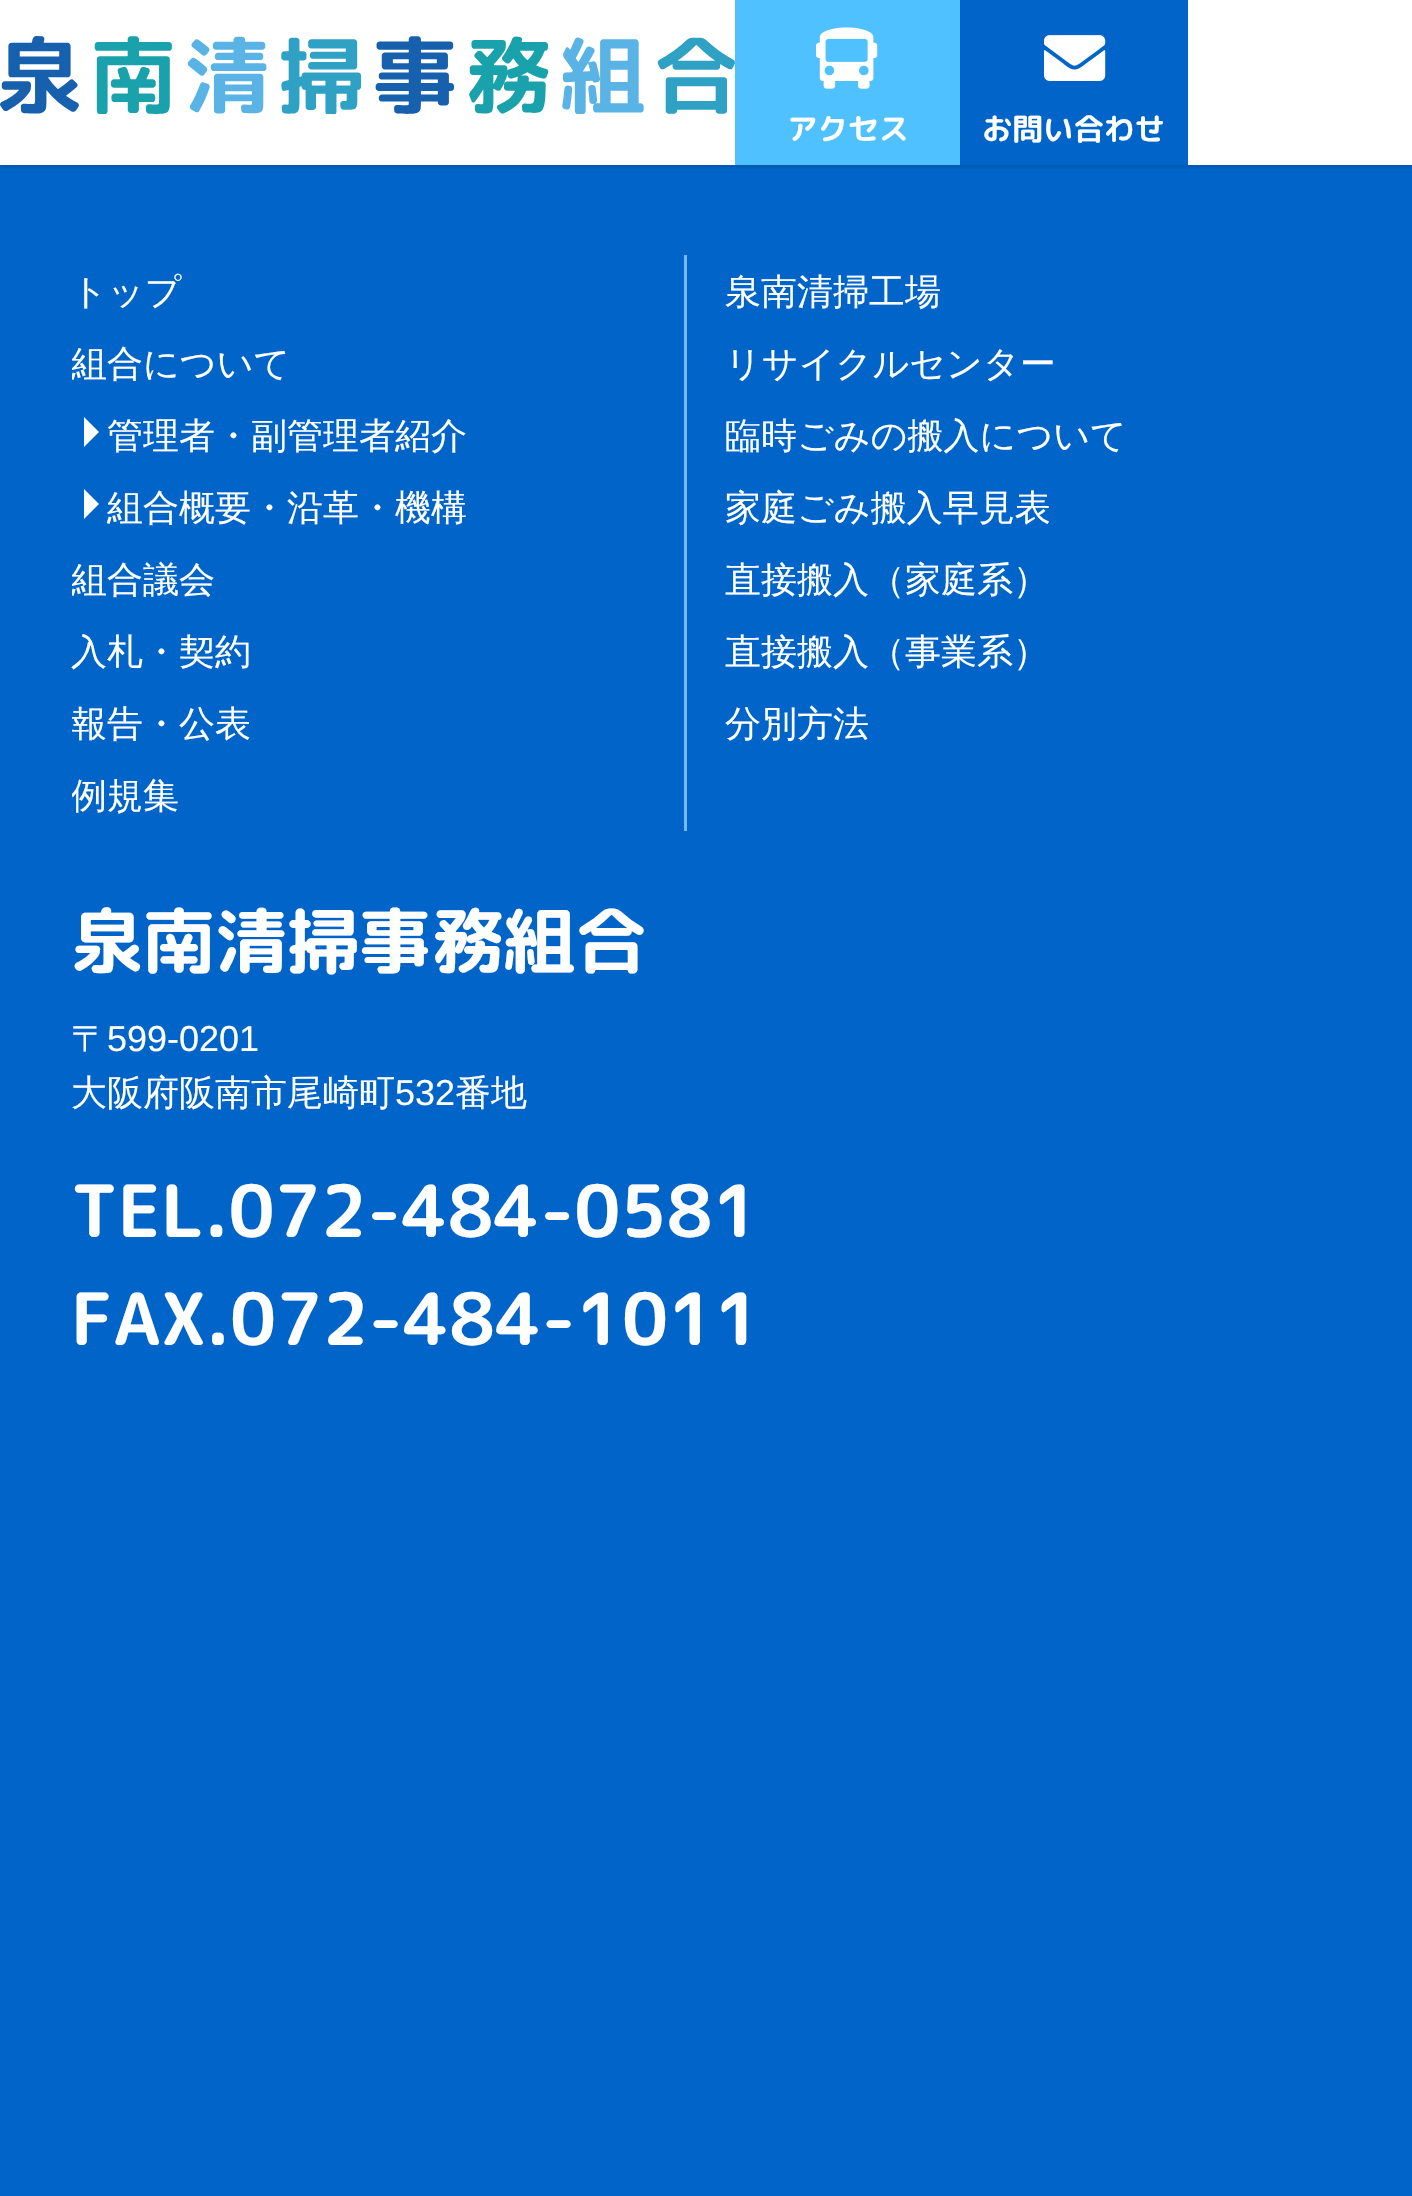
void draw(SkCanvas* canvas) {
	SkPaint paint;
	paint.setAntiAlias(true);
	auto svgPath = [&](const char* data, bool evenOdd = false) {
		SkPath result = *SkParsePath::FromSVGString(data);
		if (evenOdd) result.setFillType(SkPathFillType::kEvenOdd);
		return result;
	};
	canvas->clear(0xffffffff);
	paint.setColor(0xff0064c8);
	canvas->drawRect(SkRect::MakeXYWH(0, 165, 1412, 2031), paint);
	canvas->save();
	canvas->clipRect(SkRect::MakeXYWH(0, 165, 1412, 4));
	paint.setColor(0x1a000000);
	paint.setMaskFilter(SkMaskFilter::MakeBlur(kNormal_SkBlurStyle, 1.5));
	canvas->drawRect(SkRect::MakeXYWH(0, 3, 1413, 165), paint);
	paint.setMaskFilter(nullptr);
	canvas->restore();
	canvas->drawImageRect(SkImages::DeferredFromEncodedData(SkData::MakeFromFileName("img1.png")), SkRect::MakeXYWH(0, 36, 735, 78), SkSamplingOptions());
	paint.setColor(0xff50c1ff);
	canvas->drawRect(SkRect::MakeXYWH(735, 0, 225, 165), paint);
	canvas->drawImageRect(SkImages::DeferredFromEncodedData(SkData::MakeFromFileName("img2.png")), SkRect::MakeXYWH(816, 27, 62, 62), SkSamplingOptions());
	SkFont f1(fontMgr->matchFamilyStyle("Rounded Mplus 1c Bold", SkFontStyle::Bold()), 30.5);
	f1.setSubpixel(true);
	paint.setColor(0xffffffff);
	canvas->drawString("アクセス", 787, 140, f1, paint);
	paint.setColor(0xff0064c8);
	canvas->drawRect(SkRect::MakeXYWH(960, 0, 228, 165), paint);
	canvas->drawImageRect(SkImages::DeferredFromEncodedData(SkData::MakeFromFileName("img3.png")), SkRect::MakeXYWH(1044, 35, 62, 46), SkSamplingOptions());
	paint.setColor(0xffffffff);
	canvas->drawString("お問い合わせ", 982, 140, f1, paint);
	paint.setColor(0xff73baf4);
	canvas->drawRect(SkRect::MakeXYWH(684, 255, 3, 576), paint);
	SkFont f2(fontMgr->matchFamilyStyle("WenQuanYi Zen Hei", SkFontStyle(500, SkFontStyle::kNormal_Width, SkFontStyle::kUpright_Slant)), 36);
	f2.setSubpixel(true);
	paint.setColor(0xffffffff);
	canvas->drawString("トップ", 71, 304, f2, paint);
	canvas->save();
	canvas->clipRect(SkRect::MakeXYWH(72, 255, 1269, 576));
	canvas->drawString("組合について", 71, 376, f2, paint);
	canvas->restore();
	canvas->drawPath(svgPath("M84 447V417L99 432Z"), paint);
	canvas->drawString("管理者・副管理者紹介", 107, 448, f2, paint);
	canvas->drawPath(svgPath("M84 519V489L99 504Z"), paint);
	canvas->drawString("組合概要・沿革・機構", 107, 520, f2, paint);
	canvas->save();
	canvas->clipRect(SkRect::MakeXYWH(72, 255, 1269, 576));
	canvas->drawString("組合議会", 71, 592, f2, paint);
	canvas->restore();
	canvas->drawString("入札・契約", 71, 664, f2, paint);
	canvas->save();
	canvas->clipRect(SkRect::MakeXYWH(72, 255, 1269, 576));
	canvas->drawString("報告・公表", 71, 736, f2, paint);
	canvas->drawString("例規集", 71, 808, f2, paint);
	canvas->restore();
	canvas->drawString("泉南清掃工場", 725, 304, f2, paint);
	canvas->drawString("リサイクルセンター", 725, 376, f2, paint);
	canvas->drawString("臨時ごみの搬入について", 725, 448, f2, paint);
	canvas->drawString("家庭ごみ搬入早見表", 725, 520, f2, paint);
	canvas->drawString("直接搬入（家庭系）", 725, 592, f2, paint);
	canvas->drawString("直接搬入（事業系）", 725, 664, f2, paint);
	canvas->drawString("分別方法", 725, 736, f2, paint);
	SkFont f3(fontMgr->matchFamilyStyle("Rounded Mplus 1c Bold", SkFontStyle::Bold()), 72);
	f3.setSubpixel(true);
	canvas->drawString("泉南清掃事務組合", 71, 967, f3, paint);
	canvas->drawString("〒", 71, 1051, f2, paint);
	SkFont f4(fontMgr->matchFamilyStyle("Liberation Sans", SkFontStyle::Normal()), 36);
	f4.setSubpixel(true);
	canvas->drawString("599-0201", 107, 1051, f4, paint);
	canvas->drawString("大阪府阪南市尾崎町", 71, 1105, f2, paint);
	canvas->drawString("532", 395, 1105, f4, paint);
	canvas->drawString("番地", 455, 1105, f2, paint);
	canvas->drawString("TEL.072-484-0581", 71, 1237, f3, paint);
	canvas->drawString("FAX.072-484-1011", 71, 1345, f3, paint);
}
